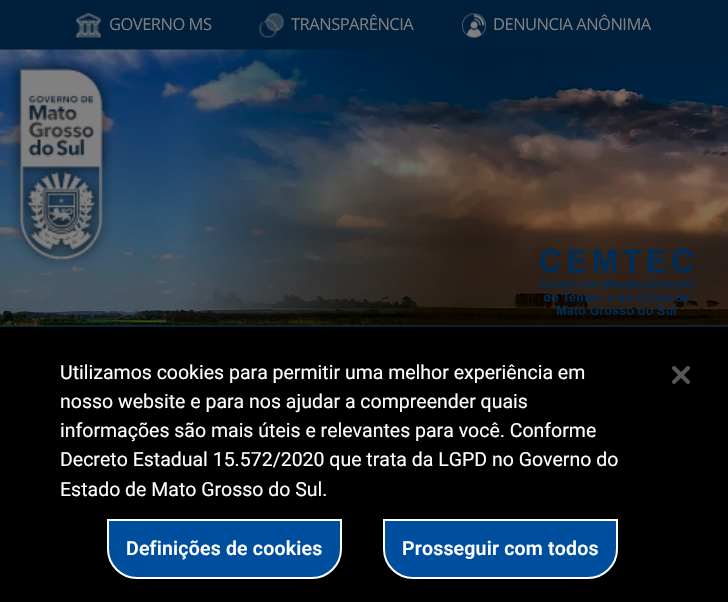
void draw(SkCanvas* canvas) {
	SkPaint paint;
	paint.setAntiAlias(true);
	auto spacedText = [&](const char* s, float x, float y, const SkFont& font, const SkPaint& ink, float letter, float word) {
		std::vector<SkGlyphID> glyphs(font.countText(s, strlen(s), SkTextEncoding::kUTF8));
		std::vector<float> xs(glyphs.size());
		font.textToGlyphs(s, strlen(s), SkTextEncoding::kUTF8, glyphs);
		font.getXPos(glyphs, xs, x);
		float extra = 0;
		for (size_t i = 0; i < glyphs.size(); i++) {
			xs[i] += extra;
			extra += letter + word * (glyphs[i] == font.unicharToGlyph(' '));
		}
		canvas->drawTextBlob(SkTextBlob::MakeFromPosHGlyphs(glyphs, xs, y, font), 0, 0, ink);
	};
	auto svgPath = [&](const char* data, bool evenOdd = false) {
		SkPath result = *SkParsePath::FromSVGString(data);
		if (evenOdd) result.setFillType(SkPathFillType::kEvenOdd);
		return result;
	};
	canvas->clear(0xff19365f);
	paint.setColor(0xff001f3b);
	canvas->drawRect(SkRect::MakeXYWH(0, 0, 728, 50), paint);
	canvas->drawImageRect(SkImages::DeferredFromEncodedData(SkData::MakeFromFileName("img1.png")), SkRect::MakeXYWH(76, 13, 25, 25), SkSamplingOptions());
	SkFont f1(fontMgr->matchFamilyStyle("Open Sans", SkFontStyle::Normal()), 16.5);
	f1.setSubpixel(true);
	paint.setColor(0xff808080);
	spacedText("GOVERNO MS", 109, 30, f1, paint, -0.5, 0);
	canvas->drawImageRect(SkImages::DeferredFromEncodedData(SkData::MakeFromFileName("img2.png")), SkRect::MakeXYWH(259, 13, 25, 25), SkSamplingOptions());
	spacedText("TRANSPARÊNCIA", 291, 30, f1, paint, -0.5, 0);
	canvas->drawImageRect(SkImages::DeferredFromEncodedData(SkData::MakeFromFileName("img3.png")), SkRect::MakeXYWH(462, 13, 24, 25), SkSamplingOptions());
	spacedText("DENUNCIA ANÔNIMA", 493, 30, f1, paint, -0.5, 0);
	canvas->drawImageRect(SkImages::DeferredFromEncodedData(SkData::MakeFromFileName("img4.png")), SkRect::MakeXYWH(0, 49, 728, 277), SkSamplingOptions());
	canvas->drawImageRect(SkImages::DeferredFromEncodedData(SkData::MakeFromFileName("img5.png")), SkRect::MakeXYWH(9, 58, 104, 211), SkSamplingOptions());
	canvas->drawImageRect(SkImages::DeferredFromEncodedData(SkData::MakeFromFileName("img6.png")), SkRect::MakeXYWH(539, 248, 155, 68), SkSamplingOptions());
	paint.setColor(0xff00284f);
	canvas->drawRect(SkRect::MakeXYWH(0, 326, 728, 1), paint);
	paint.setColor(0x33000000);
	paint.setMaskFilter(SkMaskFilter::MakeBlur(kNormal_SkBlurStyle, 13.5));
	canvas->drawRect(SkRect::MakeXYWH(0, 327, 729, 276), paint);
	paint.setMaskFilter(nullptr);
	paint.setColor(0xff000000);
	canvas->drawRect(SkRect::MakeXYWH(0, 327, 728, 275), paint);
	SkFont f2(fontMgr->matchFamilyStyle("Roboto", SkFontStyle::Normal()), 19.5);
	f2.setSubpixel(true);
	paint.setColor(0xffffffff);
	canvas->drawString("Utilizamos cookies para permitir uma melhor experiência em", 60, 379, f2, paint);
	canvas->drawString("nosso website e para nos ajudar a compreender quais", 60, 408, f2, paint);
	canvas->drawString("informações são mais úteis e relevantes para você. Conforme", 60, 437, f2, paint);
	canvas->drawString("Decreto Estadual 15.572/2020 que trata da LGPD no Governo do", 60, 466, f2, paint);
	canvas->drawString("Estado de Mato Grosso do Sul.", 60, 496, f2, paint);
	paint.setColor(0xff004f9f);
	canvas->drawPath(svgPath("M108 520H341V549C341 565 328 578 312 578H137C121 578 108 565 108 549Z"), paint);
	paint.setStroke(true);
	paint.setStrokeWidth(2);
	paint.setColor(0xffffffff);
	canvas->drawPath(svgPath("M108 520H341V549C341 565 328 578 312 578H137C121 578 108 565 108 549Z"), paint);
	SkFont f3(fontMgr->matchFamilyStyle("Roboto", SkFontStyle(600, SkFontStyle::kNormal_Width, SkFontStyle::kUpright_Slant)), 19.5);
	f3.setSubpixel(true);
	paint.setStroke(false);
	spacedText("Definições de cookies", 126, 555, f3, paint, 0.2, 0);
	paint.setColor(0xff004f9f);
	canvas->drawPath(svgPath("M384 520H617V549C617 565 604 578 588 578H413C397 578 384 565 384 549Z"), paint);
	paint.setStroke(true);
	paint.setColor(0xffffffff);
	canvas->drawPath(svgPath("M384 520H617V549C617 565 604 578 588 578H413C397 578 384 565 384 549Z"), paint);
	paint.setStroke(false);
	spacedText("Prosseguir com todos", 402, 555, f3, paint, 0.2, 0);
	canvas->drawImageRect(SkImages::DeferredFromEncodedData(SkData::MakeFromFileName("img7.png")), SkRect::MakeXYWH(672, 366, 18, 18), SkSamplingOptions());
}
